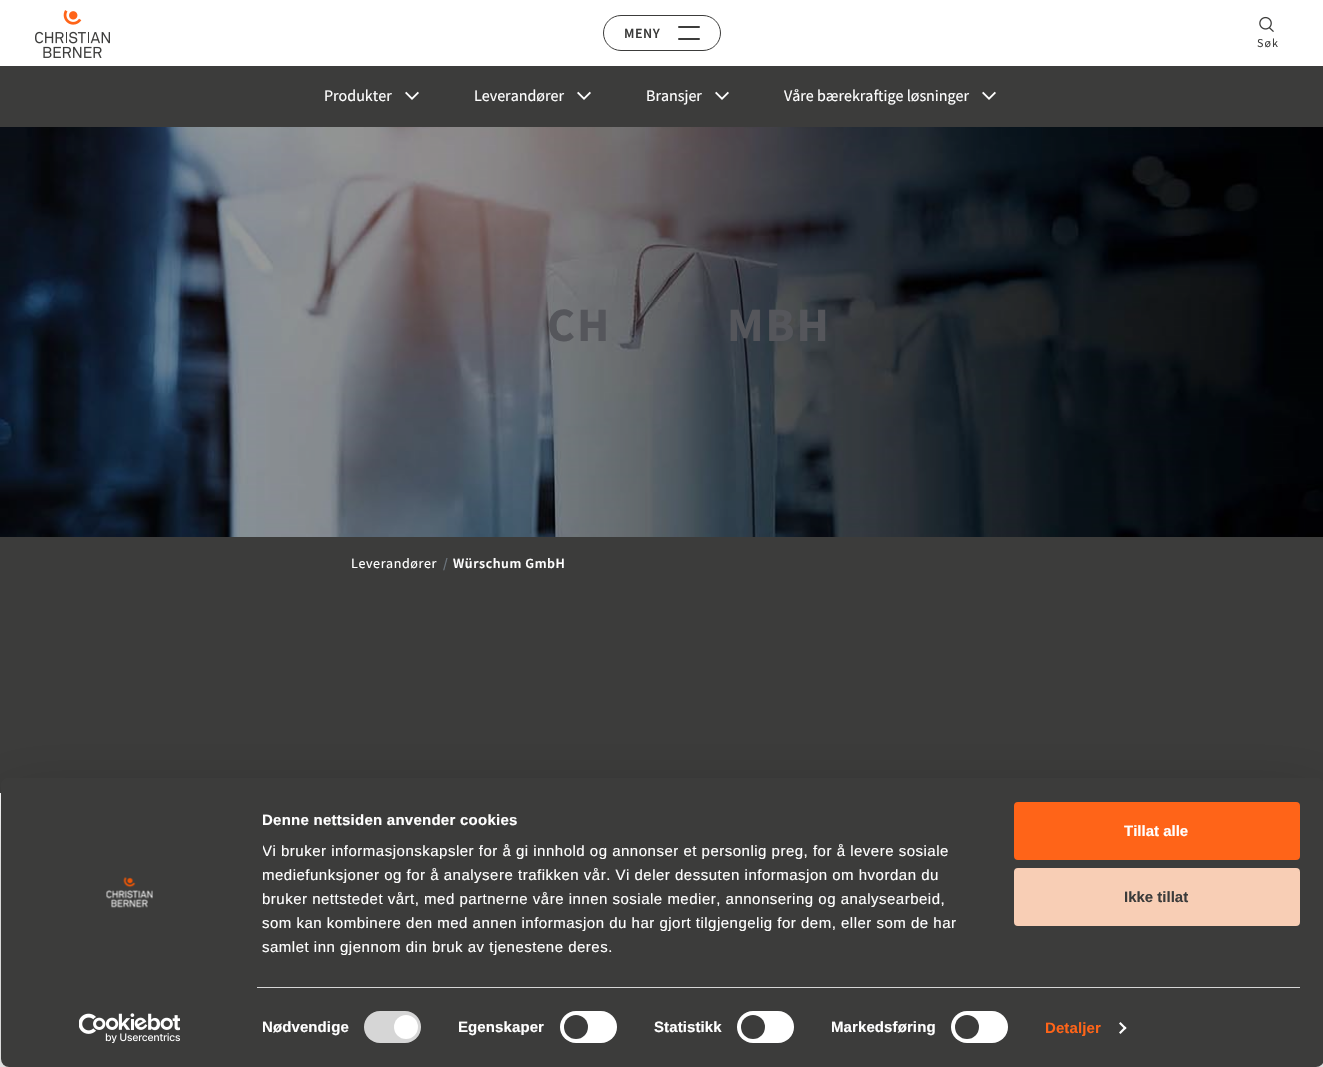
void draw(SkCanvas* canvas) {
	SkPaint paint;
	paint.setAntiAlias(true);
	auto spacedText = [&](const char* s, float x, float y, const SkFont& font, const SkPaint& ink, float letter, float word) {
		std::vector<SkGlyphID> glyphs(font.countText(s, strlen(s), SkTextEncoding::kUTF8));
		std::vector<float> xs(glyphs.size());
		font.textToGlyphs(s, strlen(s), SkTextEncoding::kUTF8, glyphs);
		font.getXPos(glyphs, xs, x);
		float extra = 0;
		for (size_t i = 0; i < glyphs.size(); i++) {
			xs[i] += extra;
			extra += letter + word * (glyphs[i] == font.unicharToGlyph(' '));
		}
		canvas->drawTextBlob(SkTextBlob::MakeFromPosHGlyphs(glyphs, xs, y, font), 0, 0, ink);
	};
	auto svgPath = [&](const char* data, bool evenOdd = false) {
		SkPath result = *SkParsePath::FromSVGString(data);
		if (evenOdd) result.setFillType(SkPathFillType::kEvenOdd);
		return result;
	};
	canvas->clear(0xffffffff);
	canvas->drawImageRect(SkImages::DeferredFromEncodedData(SkData::MakeFromFileName("img1.png")), SkRect::MakeXYWH(35, 10, 75, 48), SkSamplingOptions());
	paint.setStroke(true);
	paint.setStrokeWidth(1);
	paint.setColor(0xff3c3c3b);
	canvas->drawRoundRect(SkRect::MakeXYWH(603.5, 15.5, 117, 35), 17.5, 17.5, paint);
	SkFont f1(fontMgr->matchFamilyStyle("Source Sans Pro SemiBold", SkFontStyle(600, SkFontStyle::kNormal_Width, SkFontStyle::kUpright_Slant)), 14);
	f1.setSubpixel(true);
	paint.setStroke(false);
	spacedText("MENY", 624, 38, f1, paint, 0.5, 0);
	canvas->drawRoundRect(SkRect::MakeXYWH(678, 26, 22, 2), 1, 1, paint);
	canvas->drawRoundRect(SkRect::MakeXYWH(678, 38, 22, 2), 1, 1, paint);
	canvas->drawImageRect(SkImages::DeferredFromEncodedData(SkData::MakeFromFileName("img2.png")), SkRect::MakeXYWH(1259, 16, 15, 16), SkSamplingOptions());
	SkFont f2(fontMgr->matchFamilyStyle("Source Sans Pro", SkFontStyle::Normal()), 12);
	f2.setSubpixel(true);
	spacedText("Søk", 1257, 47, f2, paint, 1, 0);
	canvas->drawRect(SkRect::MakeXYWH(0, 66, 1323, 61), paint);
	SkFont f3(fontMgr->matchFamilyStyle("Source Sans Pro", SkFontStyle::Normal()), 16);
	f3.setSubpixel(true);
	paint.setColor(0xffffffff);
	canvas->drawString("Produkter", 324, 101, f3, paint);
	canvas->drawImageRect(SkImages::DeferredFromEncodedData(SkData::MakeFromFileName("img3.png")), SkRect::MakeXYWH(405, 91, 14, 9), SkSamplingOptions());
	canvas->drawString("Leverandører", 474, 101, f3, paint);
	canvas->drawImageRect(SkImages::DeferredFromEncodedData(SkData::MakeFromFileName("img3.png")), SkRect::MakeXYWH(577, 91, 14, 9), SkSamplingOptions());
	canvas->drawString("Bransjer", 646, 101, f3, paint);
	canvas->drawImageRect(SkImages::DeferredFromEncodedData(SkData::MakeFromFileName("img3.png")), SkRect::MakeXYWH(715, 91, 14, 9), SkSamplingOptions());
	canvas->drawString("Våre bærekraftige løsninger", 784, 101, f3, paint);
	canvas->drawImageRect(SkImages::DeferredFromEncodedData(SkData::MakeFromFileName("img3.png")), SkRect::MakeXYWH(982, 91, 14, 9), SkSamplingOptions());
	canvas->drawImageRect(SkImages::DeferredFromEncodedData(SkData::MakeFromFileName("img4.png")), SkRect::MakeXYWH(0, 127, 1323, 410), SkSamplingOptions());
	SkFont f4(fontMgr->matchFamilyStyle("Source Sans Pro", SkFontStyle::Bold()), 48);
	f4.setSubpixel(true);
	paint.setColor(0xff55565b);
	spacedText("CH", 547, 341, f4, paint, 2, 0);
	spacedText("MBH", 727, 341, f4, paint, 2, 0);
	paint.setColor(0xff3c3c3b);
	canvas->drawRect(SkRect::MakeXYWH(0, 537, 1323, 256), paint);
	SkFont f5(fontMgr->matchFamilyStyle("Source Sans Pro", SkFontStyle::Normal()), 14);
	f5.setSubpixel(true);
	paint.setColor(0xffffffff);
	spacedText("Leverandører", 351, 568, f5, paint, 0.6, 0);
	paint.setColor(0xff6c757d);
	spacedText("/", 443, 568, f1, paint, 0.6, 0);
	paint.setColor(0xffffffff);
	spacedText("Würschum GmbH", 453, 568, f1, paint, 0.6, 0);
	canvas->save();
	canvas->clipPath(svgPath("M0 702H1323V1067H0ZM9 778H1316C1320.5 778 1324 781.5 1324 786V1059C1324 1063.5 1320.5 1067 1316 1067H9C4.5 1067 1 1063.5 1 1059V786C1 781.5 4.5 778 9 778Z", true), true);
	paint.setColor(0x4d000000);
	paint.setMaskFilter(SkMaskFilter::MakeBlur(kNormal_SkBlurStyle, 35));
	canvas->drawRoundRect(SkRect::MakeXYWH(1, 808, 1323, 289), 8, 8, paint);
	paint.setMaskFilter(nullptr);
	canvas->restore();
	paint.setColor(0xff3c3c3b);
	canvas->drawRoundRect(SkRect::MakeXYWH(1, 778, 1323, 289), 8, 8, paint);
	SkFont f6(fontMgr->matchFamilyStyle("Liberation Sans", SkFontStyle::Bold()), 15);
	f6.setSubpixel(true);
	paint.setColor(0xffffffff);
	spacedText("Denne nettsiden anvender cookies", 262, 825, f6, paint, 0.25, 0);
	canvas->save();
	canvas->clipRect(SkRect::MakeXYWH(263, 808, 722, 151));
	SkFont f7(fontMgr->matchFamilyStyle("Liberation Sans", SkFontStyle::Normal()), 15);
	f7.setSubpixel(true);
	spacedText("Vi bruker informasjonskapsler for å gi innhold og annonser et personlig preg, for å levere sosiale", 262, 856, f7, paint, 0.5, 0);
	canvas->restore();
	spacedText("mediefunksjoner og for å analysere trafikken vår. Vi deler dessuten informasjon om hvordan du", 262, 880, f7, paint, 0.5, 0);
	spacedText("bruker nettstedet vårt, med partnerne våre innen sosiale medier, annonsering og analysearbeid,", 262, 904, f7, paint, 0.5, 0);
	spacedText("som kan kombinere den med annen informasjon du har gjort tilgjengelig for dem, eller som de har", 262, 928, f7, paint, 0.5, 0);
	spacedText("samlet inn gjennom din bruk av tjenestene deres.", 262, 952, f7, paint, 0.5, 0);
	paint.setColor(0xffd6d6d6);
	canvas->drawRect(SkRect::MakeXYWH(257, 987, 1043, 1), paint);
	paint.setColor(0xffffffff);
	spacedText("Nødvendige", 262, 1032, f6, paint, 0.1, 0);
	paint.setColor(0xffd6d6d6);
	canvas->drawRoundRect(SkRect::MakeXYWH(364, 1011, 57, 32), 16, 16, paint);
	paint.setColor(0xffffffff);
	canvas->drawCircle(406, 1027, 12, paint);
	spacedText("Egenskaper", 458, 1032, f6, paint, 0.1, 0);
	canvas->drawRoundRect(SkRect::MakeXYWH(560, 1011, 57, 32), 16, 16, paint);
	paint.setColor(0xff3c3c3b);
	canvas->drawCircle(576, 1027, 12, paint);
	paint.setColor(0xffffffff);
	spacedText("Statistikk", 654, 1032, f6, paint, 0.1, 0);
	canvas->drawRoundRect(SkRect::MakeXYWH(737, 1011, 57, 32), 16, 16, paint);
	paint.setColor(0xff3c3c3b);
	canvas->drawCircle(753, 1027, 12, paint);
	paint.setColor(0xffffffff);
	spacedText("Markedsføring", 831, 1032, f6, paint, 0.1, 0);
	canvas->drawRoundRect(SkRect::MakeXYWH(951, 1011, 57, 32), 16, 16, paint);
	paint.setColor(0xff3c3c3b);
	canvas->drawCircle(967, 1027, 12, paint);
	paint.setColor(0xffff6418);
	spacedText("Detaljer", 1045, 1033, f6, paint, 0.1, 0);
	paint.setColor(0xffffffff);
	canvas->drawPath(svgPath("M1120.5 1022L1126.5 1028L1125 1029.5L1119 1023.5Z"), paint);
	canvas->drawPath(svgPath("M1125 1026.5L1126.5 1028L1120.5 1034L1119 1032.5Z"), paint);
	paint.setColor(0xffff6418);
	canvas->drawRoundRect(SkRect::MakeXYWH(1015, 803, 284, 56), 3, 3, paint);
	paint.setStroke(true);
	paint.setStrokeWidth(2);
	canvas->drawRoundRect(SkRect::MakeXYWH(1015, 803, 284, 56), 3, 3, paint);
	paint.setStroke(false);
	paint.setColor(0xffffffff);
	canvas->drawString("Tillat alle", 1124, 836, f6, paint);
	paint.setColor(0xfff8ceb5);
	canvas->drawRoundRect(SkRect::MakeXYWH(1015, 869, 284, 56), 3, 3, paint);
	paint.setStroke(true);
	canvas->drawRoundRect(SkRect::MakeXYWH(1015, 869, 284, 56), 3, 3, paint);
	paint.setStroke(false);
	paint.setColor(0xff3c3c3b);
	canvas->drawString("Ikke tillat", 1124, 902, f6, paint);
	canvas->drawImageRect(SkImages::DeferredFromEncodedData(SkData::MakeFromFileName("img5.png")), SkRect::MakeXYWH(106, 877, 47, 31), SkSamplingOptions());
	canvas->drawImageRect(SkImages::DeferredFromEncodedData(SkData::MakeFromFileName("img6.png")), SkRect::MakeXYWH(79, 1013, 101, 30), SkSamplingOptions());
}
